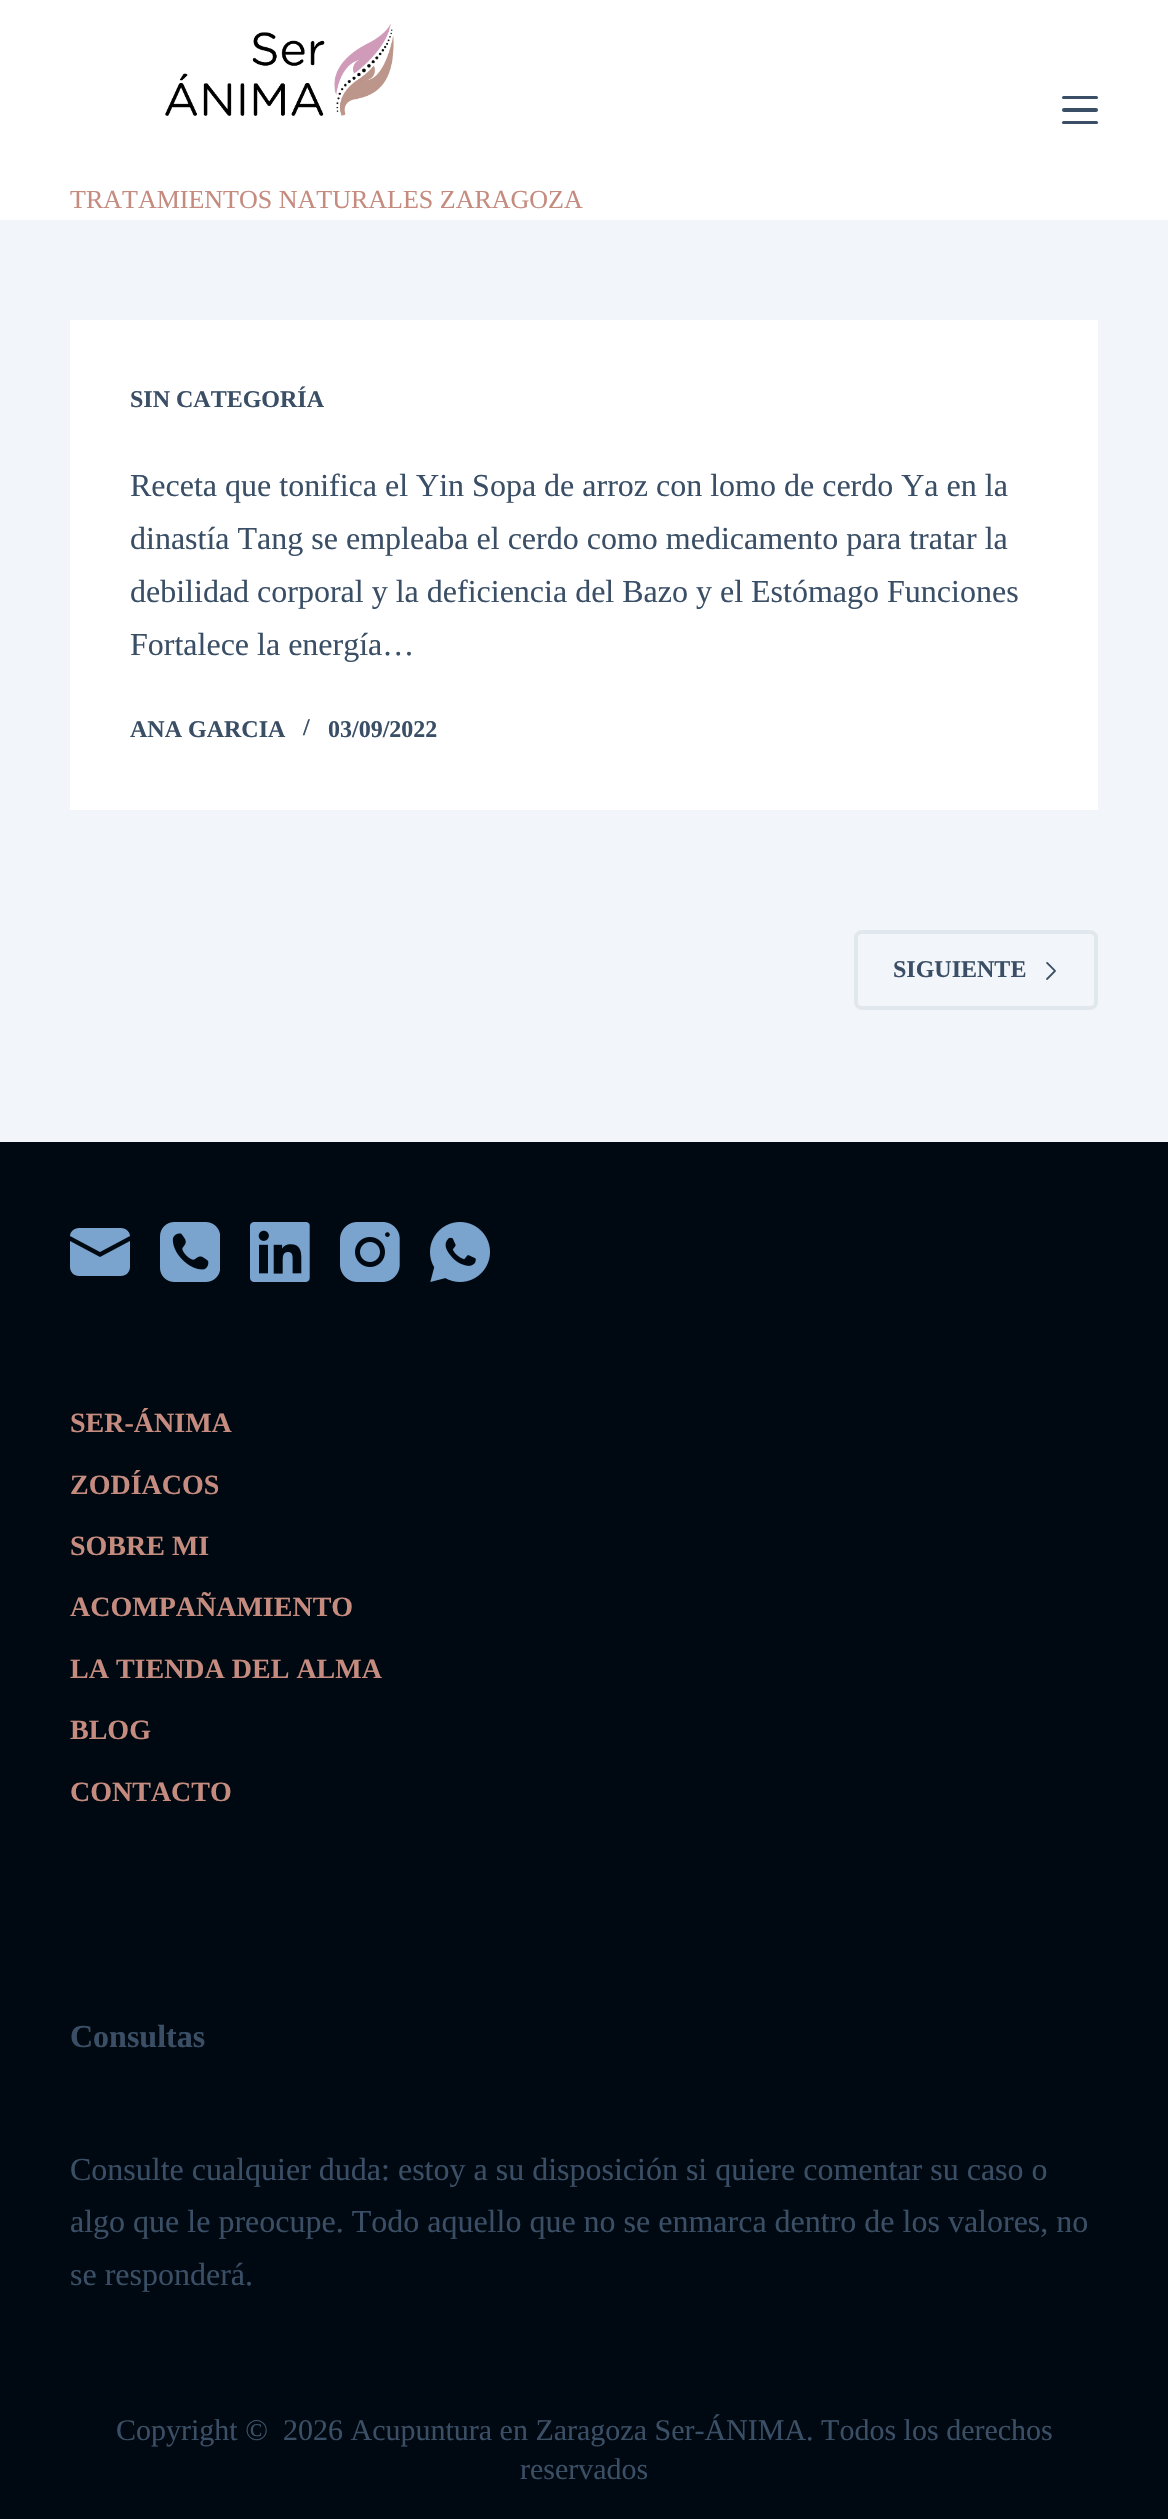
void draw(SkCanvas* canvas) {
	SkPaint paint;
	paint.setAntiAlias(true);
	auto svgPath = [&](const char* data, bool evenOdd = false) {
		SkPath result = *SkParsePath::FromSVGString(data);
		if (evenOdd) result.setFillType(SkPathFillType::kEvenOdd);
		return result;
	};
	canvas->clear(0xfff2f5f9);
	paint.setColor(0xffffffff);
	canvas->drawRect(SkRect::MakeXYWH(0, 0, 1168, 220), paint);
	paint.setColor(0xff3a4f66);
	canvas->drawRoundRect(SkRect::MakeXYWH(1062, 96, 36, 3), 1.5, 1.5, paint);
	canvas->drawRoundRect(SkRect::MakeXYWH(1062, 108, 36, 4), 2, 2, paint);
	canvas->drawRoundRect(SkRect::MakeXYWH(1062, 121, 36, 3), 1.5, 1.5, paint);
	canvas->drawImageRect(SkImages::DeferredFromEncodedData(SkData::MakeFromFileName("img1.png")), SkRect::MakeXYWH(165, 24, 229, 92), SkSamplingOptions());
	SkFont f1(fontMgr->matchFamilyStyle("Liberation Serif", SkFontStyle::Normal()), 26);
	f1.setSubpixel(true);
	paint.setColor(0xffc58b7f);
	canvas->drawString("TRATAMIENTOS NATURALES ZARAGOZA", 70, 208, f1, paint);
	paint.setColor(0xffffffff);
	canvas->drawRect(SkRect::MakeXYWH(70, 320, 1028, 490), paint);
	SkFont f2(fontMgr->matchFamilyStyle("Liberation Serif", SkFontStyle::Bold()), 24);
	f2.setSubpixel(true);
	paint.setColor(0xff3a4f66);
	canvas->drawString("SIN CATEGORÍA", 130, 407, f2, paint);
	SkFont f3(fontMgr->matchFamilyStyle("Liberation Serif", SkFontStyle::Normal()), 32);
	f3.setSubpixel(true);
	canvas->drawString("Receta que tonifica el Yin Sopa de arroz con lomo de cerdo Ya en la", 130, 496, f3, paint);
	canvas->drawString("dinastía Tang se empleaba el cerdo como medicamento para tratar la", 130, 549, f3, paint);
	canvas->drawString("debilidad corporal y la deficiencia del Bazo y el Estómago Funciones", 130, 602, f3, paint);
	canvas->drawString("Fortalece la energía…", 130, 655, f3, paint);
	canvas->drawString("ANA GARCIA", 130, 737, f2, paint);
	canvas->drawString("/", 303, 735, f2, paint);
	canvas->drawString("03/09/2022", 328, 737, f2, paint);
	paint.setStroke(true);
	paint.setStrokeWidth(4);
	paint.setColor(0xffe1e8ed);
	canvas->drawRoundRect(SkRect::MakeXYWH(856, 932, 240, 76), 6, 6, paint);
	paint.setStroke(false);
	paint.setColor(0xff3a4f66);
	canvas->drawString("SIGUIENTE", 893, 977, f2, paint);
	canvas->drawImageRect(SkImages::DeferredFromEncodedData(SkData::MakeFromFileName("img2.png")), SkRect::MakeXYWH(1046, 962, 10, 18), SkSamplingOptions());
	paint.setColor(0xff000911);
	canvas->drawRect(SkRect::MakeXYWH(0, 1142, 1168, 1377), paint);
	paint.setColor(0xff7aa4ce);
	canvas->drawPath(svgPath("M100 1252L70 1236C70 1232 74 1228 79 1228H121C126 1228 130 1232 130 1236ZM100 1257L70 1241V1267C70 1272 74 1276 79 1276H121C126 1276 130 1272 130 1267V1241Z"), paint);
	canvas->drawImageRect(SkImages::DeferredFromEncodedData(SkData::MakeFromFileName("img3.png")), SkRect::MakeXYWH(160, 1222, 60, 60), SkSamplingOptions());
	canvas->drawImageRect(SkImages::DeferredFromEncodedData(SkData::MakeFromFileName("img4.png")), SkRect::MakeXYWH(250, 1222, 60, 60), SkSamplingOptions());
	canvas->drawImageRect(SkImages::DeferredFromEncodedData(SkData::MakeFromFileName("img5.png")), SkRect::MakeXYWH(340, 1222, 60, 60), SkSamplingOptions());
	canvas->drawImageRect(SkImages::DeferredFromEncodedData(SkData::MakeFromFileName("img6.png")), SkRect::MakeXYWH(430, 1222, 60, 60), SkSamplingOptions());
	SkFont f4(fontMgr->matchFamilyStyle("Liberation Serif", SkFontStyle::Bold()), 28);
	f4.setSubpixel(true);
	paint.setColor(0xffc58b7f);
	canvas->drawString("SER-ÁNIMA", 70, 1432, f4, paint);
	canvas->drawString("ZODÍACOS", 70, 1494, f4, paint);
	canvas->drawString("SOBRE MI", 70, 1555, f4, paint);
	canvas->drawString("ACOMPAÑAMIENTO", 70, 1616, f4, paint);
	canvas->drawString("LA TIENDA DEL ALMA", 70, 1678, f4, paint);
	canvas->drawString("BLOG", 70, 1739, f4, paint);
	canvas->drawString("CONTACTO", 70, 1801, f4, paint);
	SkFont f5(fontMgr->matchFamilyStyle("Liberation Serif", SkFontStyle::Bold()), 32);
	f5.setSubpixel(true);
	paint.setColor(0xff3a4f66);
	canvas->drawString("Consultas", 70, 2047, f5, paint);
	canvas->drawString("Consulte cualquier duda: estoy a su disposición si quiere comentar su caso o", 70, 2180, f3, paint);
	canvas->drawString("algo que le preocupe. Todo aquello que no se enmarca dentro de los valores, no", 70, 2232, f3, paint);
	canvas->drawString("se responderá.", 70, 2285, f3, paint);
	SkFont f6(fontMgr->matchFamilyStyle("Liberation Serif", SkFontStyle::Normal()), 30);
	f6.setSubpixel(true);
	canvas->drawString("Copyright ©  2026 Acupuntura en Zaragoza Ser-ÁNIMA. Todos los derechos", 116, 2440, f6, paint);
	canvas->drawString("reservados", 520, 2479, f6, paint);
}
